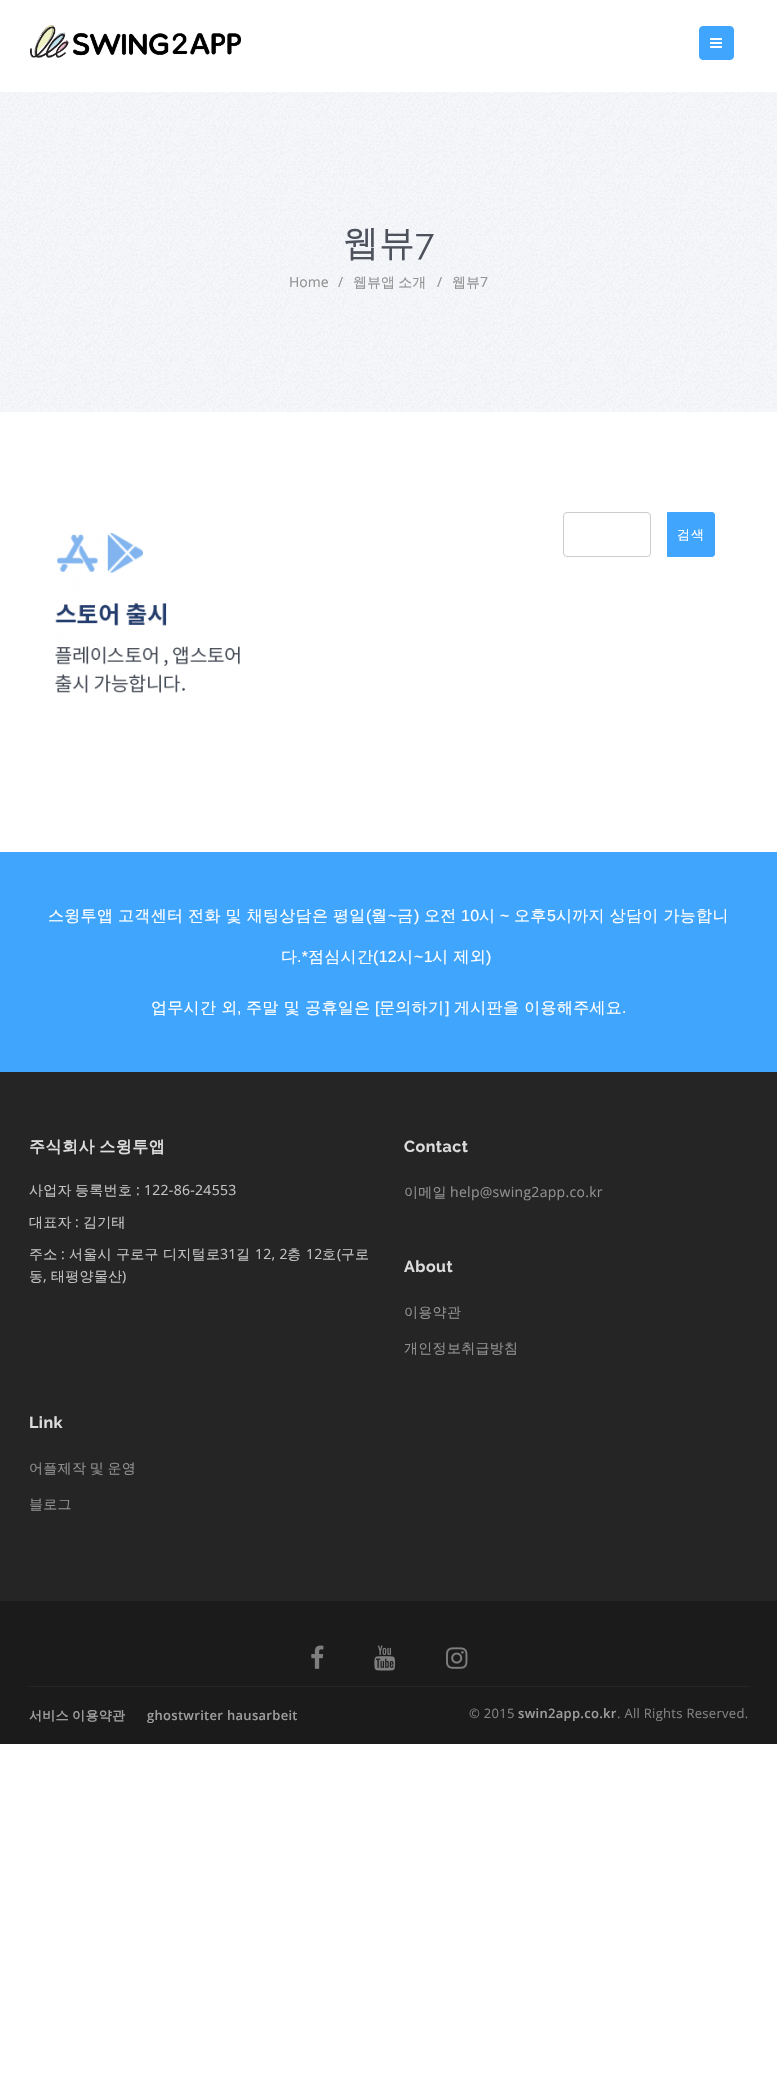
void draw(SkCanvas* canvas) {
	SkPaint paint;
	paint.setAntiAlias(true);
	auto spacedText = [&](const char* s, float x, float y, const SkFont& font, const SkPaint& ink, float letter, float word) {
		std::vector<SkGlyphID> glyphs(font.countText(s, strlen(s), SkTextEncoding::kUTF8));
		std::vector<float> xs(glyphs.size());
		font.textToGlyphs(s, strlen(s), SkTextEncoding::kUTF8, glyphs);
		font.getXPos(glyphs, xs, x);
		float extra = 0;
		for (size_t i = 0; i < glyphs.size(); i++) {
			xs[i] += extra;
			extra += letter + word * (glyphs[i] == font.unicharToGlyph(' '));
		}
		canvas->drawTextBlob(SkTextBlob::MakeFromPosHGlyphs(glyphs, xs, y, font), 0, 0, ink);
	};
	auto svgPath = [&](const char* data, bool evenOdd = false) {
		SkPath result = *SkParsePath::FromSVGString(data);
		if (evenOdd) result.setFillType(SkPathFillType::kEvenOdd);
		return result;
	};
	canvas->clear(0xffffffff);
	canvas->drawImageRect(SkImages::DeferredFromEncodedData(SkData::MakeFromFileName("img1.png")), SkRect::MakeXYWH(30, 25, 211, 33), SkSamplingOptions());
	paint.setColor(0xff40a5fd);
	canvas->drawRoundRect(SkRect::MakeXYWH(699.5, 26.5, 34, 33), 3.5, 3.5, paint);
	paint.setStroke(true);
	paint.setStrokeWidth(1);
	canvas->drawRoundRect(SkRect::MakeXYWH(699.5, 26.5, 34, 33), 3.5, 3.5, paint);
	canvas->drawImageRect(SkImages::DeferredFromEncodedData(SkData::MakeFromFileName("img2.png")), SkRect::MakeXYWH(710, 38, 12, 10), SkSamplingOptions());
	canvas->drawImageRect(SkImages::DeferredFromEncodedData(SkData::MakeFromFileName("img3.png")), SkRect::MakeXYWH(0, 92, 777, 320), SkSamplingOptions());
	SkFont f1(fontMgr->matchFamilyStyle("WenQuanYi Zen Hei", SkFontStyle(500, SkFontStyle::kNormal_Width, SkFontStyle::kUpright_Slant)), 36);
	f1.setSubpixel(true);
	paint.setStroke(false);
	paint.setColor(0xff4d515c);
	canvas->drawString("웹뷰", 343, 255, f1, paint);
	SkFont f2(fontMgr->matchFamilyStyle("Raleway", SkFontStyle::Normal()), 36);
	f2.setSubpixel(true);
	canvas->drawString("7", 415, 255, f2, paint);
	SkFont f3(fontMgr->matchFamilyStyle("Open Sans", SkFontStyle::Normal()), 14);
	f3.setSubpixel(true);
	paint.setColor(0xff919191);
	canvas->drawString("Home", 289, 287, f3, paint);
	canvas->drawString("/", 338, 287, f3, paint);
	SkFont f4(fontMgr->matchFamilyStyle("WenQuanYi Zen Hei", SkFontStyle(500, SkFontStyle::kNormal_Width, SkFontStyle::kUpright_Slant)), 14);
	f4.setSubpixel(true);
	spacedText("웹뷰앱 소개", 353, 287, f4, paint, 0, -1);
	canvas->drawString("/", 437, 287, f3, paint);
	canvas->drawString("웹뷰", 452, 287, f4, paint);
	canvas->drawString("7", 480, 287, f3, paint);
	canvas->drawImageRect(SkImages::DeferredFromEncodedData(SkData::MakeFromFileName("img4.png")), SkRect::MakeXYWH(55, 533, 185, 160), SkSamplingOptions());
	paint.setStroke(true);
	paint.setColor(0xffcccccc);
	canvas->drawRoundRect(SkRect::MakeXYWH(563.5, 512.5, 87, 44), 3.5, 3.5, paint);
	paint.setStroke(false);
	paint.setColor(0xff40a5fd);
	canvas->drawPath(svgPath("M667.5 512.5H712C713.5 512.5 714.5 513.5 714.5 515V554C714.5 555.5 713.5 556.5 712 556.5H667.5Z"), paint);
	paint.setStroke(true);
	canvas->drawPath(svgPath("M667.5 512.5H712C713.5 512.5 714.5 513.5 714.5 515V554C714.5 555.5 713.5 556.5 712 556.5H667.5Z"), paint);
	SkFont f5(fontMgr->matchFamilyStyle("WenQuanYi Zen Hei", SkFontStyle(500, SkFontStyle::kNormal_Width, SkFontStyle::kUpright_Slant)), 13);
	f5.setSubpixel(true);
	paint.setStroke(false);
	paint.setColor(0xffffffff);
	spacedText("검색", 677, 539, f5, paint, 1, 0);
	paint.setColor(0xff40a5fd);
	canvas->drawRect(SkRect::MakeXYWH(0, 852, 777, 220), paint);
	SkFont f6(fontMgr->matchFamilyStyle("WenQuanYi Zen Hei", SkFontStyle(500, SkFontStyle::kNormal_Width, SkFontStyle::kUpright_Slant)), 16);
	f6.setSubpixel(true);
	paint.setColor(0xffffffff);
	spacedText("스윙투앱 고객센터 전화 및 채팅상담은 평일", 48, 921, f6, paint, 0.3, -0.25);
	SkFont f7(fontMgr->matchFamilyStyle("Liberation Sans", SkFontStyle::Normal()), 16);
	f7.setSubpixel(true);
	spacedText("(", 366, 921, f7, paint, 0.3, 0);
	spacedText("월", 371, 921, f6, paint, 0.3, 0);
	spacedText("~", 388, 921, f7, paint, 0.3, 0);
	spacedText("금", 397, 921, f6, paint, 0.3, 0);
	spacedText(")", 414, 921, f7, paint, 0.3, 0);
	spacedText("오전", 424, 921, f6, paint, 0.3, 0);
	spacedText("10", 461, 921, f7, paint, 0.3, 0);
	spacedText("시", 479, 921, f6, paint, 0.3, 0);
	spacedText("~", 500, 921, f7, paint, 0.3, 0);
	spacedText("오후", 514, 921, f6, paint, 0.3, 0);
	spacedText("5", 547, 921, f7, paint, 0.3, 0);
	spacedText("시까지 상담이 가능합니", 556, 921, f6, paint, 0.3, -0.25);
	spacedText("다", 281, 962, f6, paint, 0.3, 0);
	spacedText(".*", 297, 962, f7, paint, 0.3, 0);
	spacedText("점심시간", 308, 962, f6, paint, 0.3, 0);
	spacedText("(12", 373, 962, f7, paint, 0.3, 0);
	spacedText("시", 397, 962, f6, paint, 0.3, 0);
	spacedText("~1", 414, 962, f7, paint, 0.3, 0);
	spacedText("시 제외", 432, 962, f6, paint, 0.3, 0);
	spacedText(")", 486, 962, f7, paint, 0.3, 0);
	spacedText("업무시간 외", 151, 1013, f6, paint, 0.3, 0);
	spacedText(",", 237, 1013, f7, paint, 0.3, 0);
	spacedText("주말 및 공휴일은", 246, 1013, f6, paint, 0.3, 0);
	spacedText("[", 375, 1013, f7, paint, 0.3, 0);
	spacedText("문의하기", 379, 1013, f6, paint, 0.3, 0);
	spacedText("]", 445, 1013, f7, paint, 0.3, 0);
	spacedText("게시판을 이용해주세요", 454, 1013, f6, paint, 0.3, 0);
	spacedText(".", 622, 1013, f7, paint, 0.3, 0);
	paint.setColor(0xff252525);
	canvas->drawRect(SkRect::MakeXYWH(0, 1072, 777, 529), paint);
	SkFont f8(fontMgr->matchFamilyStyle("WenQuanYi Zen Hei", SkFontStyle::Bold()), 16);
	f8.setSubpixel(true);
	paint.setColor(0xffdddddd);
	spacedText("주식회사 스윙투앱", 29, 1152, f8, paint, 0.5, -1);
	paint.setColor(0xffc3c3c3);
	spacedText("사업자", 29, 1195, f4, paint, 0.3, 0);
	spacedText("등록번호", 75, 1195, f4, paint, 0.3, 0);
	spacedText(": 122-86-24553", 136, 1195, f3, paint, 0.3, 0);
	spacedText("대표자", 29, 1227, f4, paint, 0.3, 0);
	spacedText(":", 75, 1227, f3, paint, 0.3, 0);
	spacedText("김기태", 83, 1227, f4, paint, 0.3, 0);
	spacedText("주소", 29, 1259, f4, paint, 0.3, 0);
	spacedText("서울시", 69, 1259, f4, paint, 0.3, 0);
	spacedText("구로구", 116, 1259, f4, paint, 0.3, 0);
	spacedText("디지털로", 163, 1259, f4, paint, 0.3, 0);
	spacedText("31", 220, 1259, f3, paint, 0.3, 0);
	spacedText("길", 236, 1259, f4, paint, 0.3, 0);
	spacedText("12, 2", 255, 1259, f3, paint, 0.3, 0);
	spacedText("층", 287, 1259, f4, paint, 0.3, 0);
	spacedText("12", 306, 1259, f3, paint, 0.3, 0);
	spacedText("호 구로", 322, 1259, f4, paint, 0.3, 0);
	spacedText(":", 61, 1259, f3, paint, 0.3, 0);
	spacedText("(", 337, 1259, f3, paint, 0.3, 0);
	spacedText("동", 29, 1281, f4, paint, 0.3, 0);
	spacedText(",", 43, 1281, f3, paint, 0.3, 0);
	spacedText("태평양물산", 51, 1281, f4, paint, 0.3, 0);
	spacedText(")", 122, 1281, f3, paint, 0.3, 0);
	SkFont f9(fontMgr->matchFamilyStyle("Raleway", SkFontStyle::Bold()), 16);
	f9.setSubpixel(true);
	paint.setColor(0xffdddddd);
	spacedText("Contact", 404, 1152, f9, paint, 0.5, 0);
	paint.setColor(0xff919191);
	spacedText("이메일", 404, 1197, f4, paint, 0.3, 0);
	spacedText("help@swing2app.co.kr", 450, 1197, f3, paint, 0.3, 0);
	paint.setColor(0xffdddddd);
	spacedText("About", 404, 1272, f9, paint, 0.5, 0);
	paint.setColor(0xff919191);
	spacedText("이용약관", 404, 1317, f4, paint, 0.3, 0);
	spacedText("개인정보취급방침", 404, 1353, f4, paint, 0.3, 0);
	paint.setColor(0xffdddddd);
	spacedText("Link", 29, 1428, f9, paint, 0.5, 0);
	paint.setColor(0xff919191);
	spacedText("어플제작 및 운영", 29, 1473, f4, paint, 0.3, -1);
	spacedText("블로그", 29, 1509, f4, paint, 0.3, 0);
	paint.setColor(0xff1b1b1b);
	canvas->drawRect(SkRect::MakeXYWH(0, 1601, 777, 143), paint);
	paint.setColor(0xff262626);
	canvas->drawRect(SkRect::MakeXYWH(29, 1686, 720, 1), paint);
	canvas->drawImageRect(SkImages::DeferredFromEncodedData(SkData::MakeFromFileName("img5.png")), SkRect::MakeXYWH(311, 1645, 13, 24), SkSamplingOptions());
	canvas->drawImageRect(SkImages::DeferredFromEncodedData(SkData::MakeFromFileName("img6.png")), SkRect::MakeXYWH(374, 1645, 22, 26), SkSamplingOptions());
	canvas->drawImageRect(SkImages::DeferredFromEncodedData(SkData::MakeFromFileName("img7.png")), SkRect::MakeXYWH(446, 1647, 22, 22), SkSamplingOptions());
	SkFont f10(fontMgr->matchFamilyStyle("WenQuanYi Zen Hei", SkFontStyle::Bold()), 13);
	f10.setSubpixel(true);
	paint.setColor(0xff9e9d9d);
	spacedText("서비스 이용약관", 29, 1720, f10, paint, 0.3, -1);
	SkFont f11(fontMgr->matchFamilyStyle("Open Sans", SkFontStyle(600, SkFontStyle::kNormal_Width, SkFontStyle::kUpright_Slant)), 13);
	f11.setSubpixel(true);
	spacedText("ghostwriter hausarbeit", 147, 1720, f11, paint, 0.3, 0);
	SkFont f12(fontMgr->matchFamilyStyle("Open Sans", SkFontStyle::Normal()), 13);
	f12.setSubpixel(true);
	paint.setColor(0xff828282);
	spacedText("© 2015", 469, 1718, f12, paint, 0.3, 0);
	paint.setColor(0xff9e9d9d);
	spacedText("swin2app.co.kr", 518, 1718, f11, paint, 0.3, 0);
	paint.setColor(0xff828282);
	spacedText(". All Rights Reserved.", 617, 1718, f12, paint, 0.3, 0);
}
